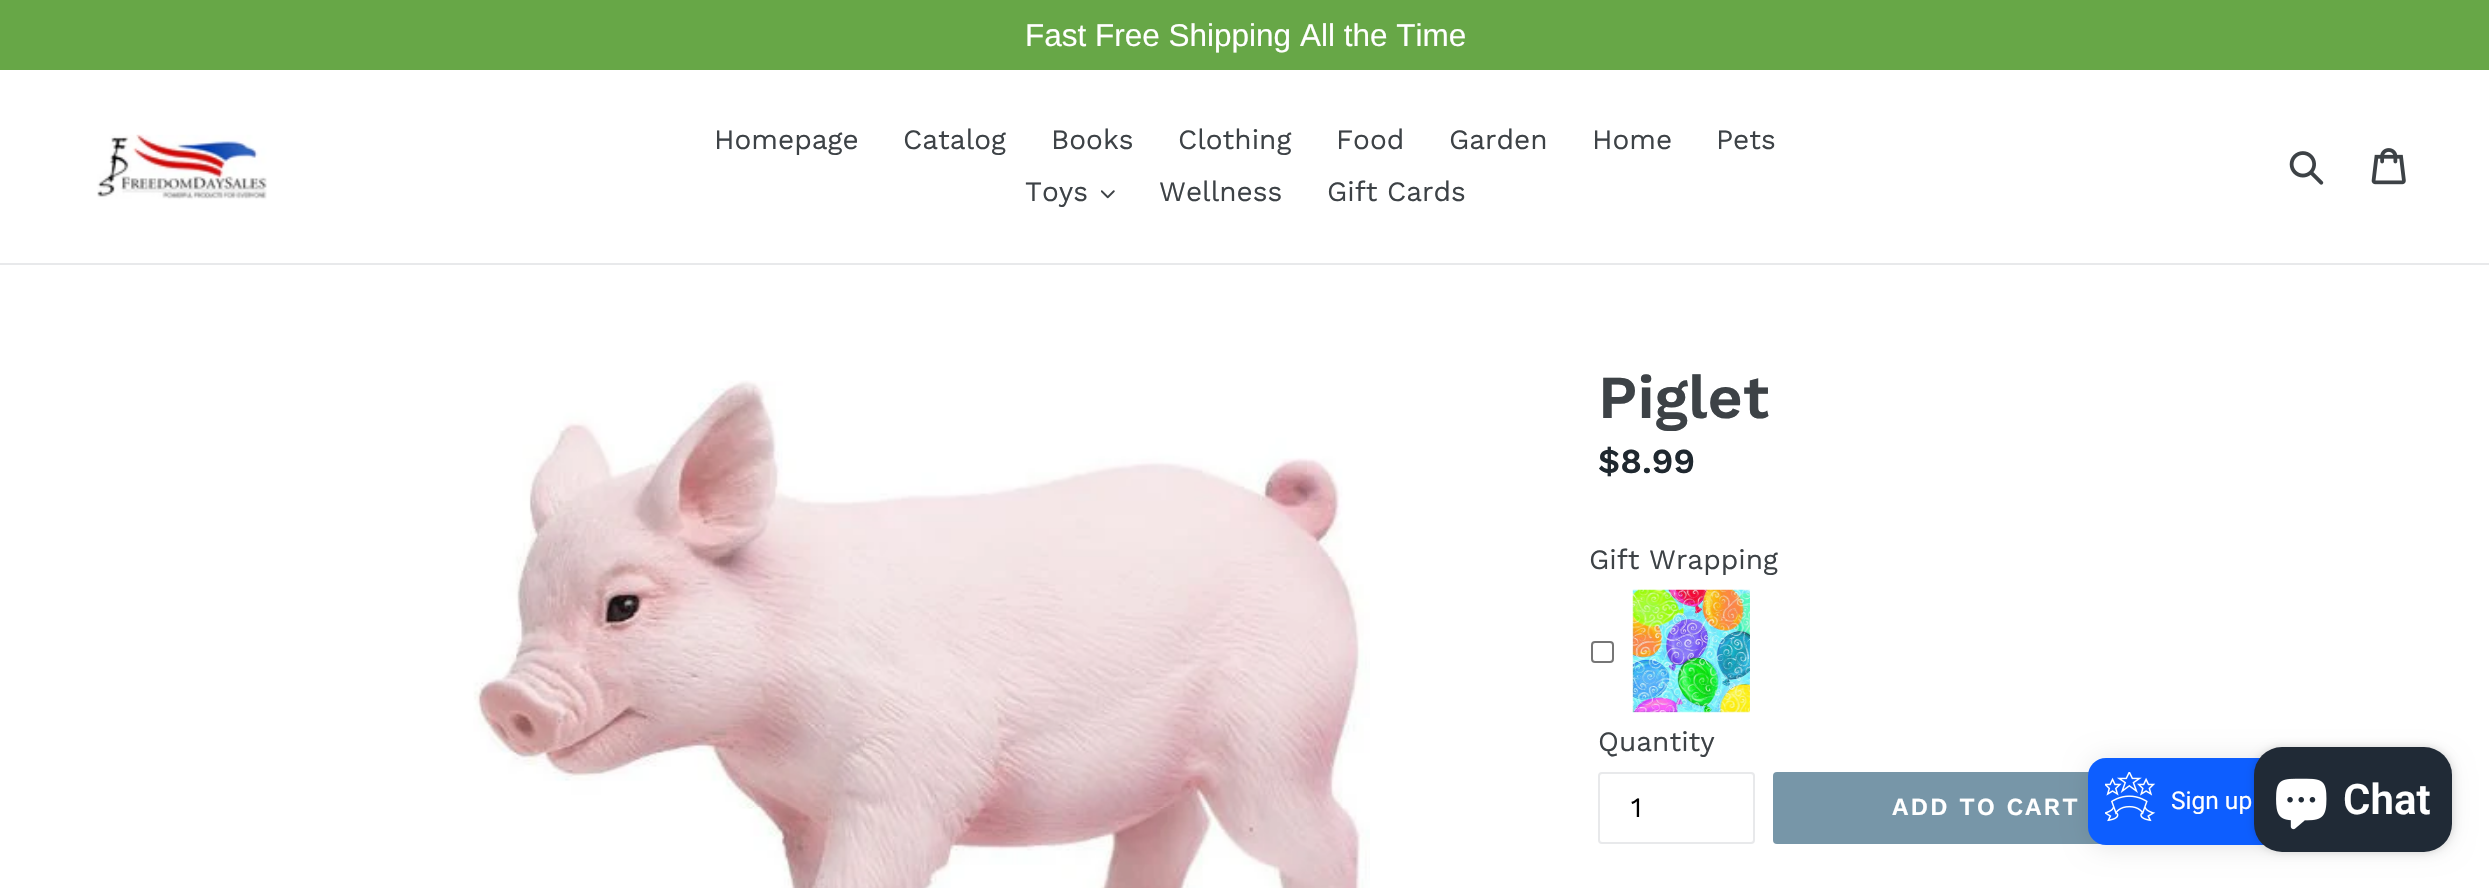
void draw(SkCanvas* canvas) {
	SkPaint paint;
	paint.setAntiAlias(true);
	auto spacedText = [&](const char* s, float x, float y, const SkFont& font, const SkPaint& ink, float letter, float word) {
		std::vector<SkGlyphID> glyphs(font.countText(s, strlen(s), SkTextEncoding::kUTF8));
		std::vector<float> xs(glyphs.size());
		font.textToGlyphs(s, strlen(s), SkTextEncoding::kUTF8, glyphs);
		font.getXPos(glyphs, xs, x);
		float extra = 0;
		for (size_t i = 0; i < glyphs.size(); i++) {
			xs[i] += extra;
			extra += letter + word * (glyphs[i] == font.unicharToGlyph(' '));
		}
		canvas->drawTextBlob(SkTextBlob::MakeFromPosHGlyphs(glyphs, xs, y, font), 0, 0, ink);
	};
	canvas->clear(0xffffffff);
	paint.setColor(0xff67a747);
	canvas->drawRect(SkRect::MakeXYWH(0, 0, 2489, 70), paint);
	SkFont f1(fontMgr->matchFamilyStyle("Liberation Sans", SkFontStyle::Normal()), 31.5);
	f1.setSubpixel(true);
	paint.setColor(0xffffffff);
	canvas->drawString("Fast Free Shipping All the Time", 1025, 46, f1, paint);
	paint.setColor(0xffe8e9eb);
	canvas->drawRect(SkRect::MakeXYWH(0, 263, 2489, 2), paint);
	canvas->drawImageRect(SkImages::DeferredFromEncodedData(SkData::MakeFromFileName("img1.png")), SkRect::MakeXYWH(97, 134, 170, 66), SkSamplingOptions());
	SkFont f2(fontMgr->matchFamilyStyle("Work Sans", SkFontStyle::Normal()), 28);
	f2.setSubpixel(true);
	paint.setColor(0xff3d4246);
	canvas->drawString("Homepage", 714, 149, f2, paint);
	canvas->drawString("Catalog", 903, 149, f2, paint);
	canvas->drawString("Books", 1051, 149, f2, paint);
	canvas->drawString("Clothing", 1178, 149, f2, paint);
	canvas->drawString("Food", 1336, 149, f2, paint);
	canvas->drawString("Garden", 1449, 149, f2, paint);
	canvas->drawString("Home", 1592, 149, f2, paint);
	canvas->drawString("Pets", 1716, 149, f2, paint);
	canvas->drawString("Toys", 1025, 201, f2, paint);
	canvas->drawImageRect(SkImages::DeferredFromEncodedData(SkData::MakeFromFileName("img2.png")), SkRect::MakeXYWH(1101, 190, 14, 9), SkSamplingOptions());
	canvas->drawString("Wellness", 1159, 201, f2, paint);
	canvas->drawString("Gift Cards", 1327, 201, f2, paint);
	canvas->drawImageRect(SkImages::DeferredFromEncodedData(SkData::MakeFromFileName("img3.png")), SkRect::MakeXYWH(2289, 151, 35, 34), SkSamplingOptions());
	canvas->drawImageRect(SkImages::DeferredFromEncodedData(SkData::MakeFromFileName("img4.png")), SkRect::MakeXYWH(2371, 148, 35, 37), SkSamplingOptions());
	canvas->drawImageRect(SkImages::DeferredFromEncodedData(SkData::MakeFromFileName("img5.png")), SkRect::MakeXYWH(473, 380, 897, 508), SkSamplingOptions());
	SkFont f3(fontMgr->matchFamilyStyle("Work Sans", SkFontStyle(600, SkFontStyle::kNormal_Width, SkFontStyle::kUpright_Slant)), 61);
	f3.setSubpixel(true);
	canvas->drawString("Piglet", 1598, 418, f3, paint);
	SkFont f4(fontMgr->matchFamilyStyle("Work Sans", SkFontStyle(600, SkFontStyle::kNormal_Width, SkFontStyle::kUpright_Slant)), 35);
	f4.setSubpixel(true);
	paint.setColor(0xff1f282f);
	canvas->drawString("$8.99", 1598, 473, f4, paint);
	paint.setColor(0xff3d4246);
	canvas->drawString("Gift Wrapping", 1589, 569, f2, paint);
	paint.setStroke(true);
	paint.setStrokeWidth(2);
	paint.setColor(0xff767676);
	canvas->drawRoundRect(SkRect::MakeXYWH(1592, 642, 21, 20), 3, 3, paint);
	canvas->drawImageRect(SkImages::DeferredFromEncodedData(SkData::MakeFromFileName("img6.png")), SkRect::MakeXYWH(1632, 589, 118, 124), SkSamplingOptions());
	paint.setStroke(false);
	paint.setColor(0xff3d4246);
	canvas->drawString("Quantity", 1598, 751, f2, paint);
	paint.setStroke(true);
	paint.setColor(0xffe8e9eb);
	canvas->drawRoundRect(SkRect::MakeXYWH(1599, 773, 155, 70), 3, 3, paint);
	paint.setStroke(false);
	paint.setColor(0xff000000);
	canvas->drawString("1", 1631, 817, f2, paint);
	paint.setColor(0xff7796a8);
	canvas->drawRoundRect(SkRect::MakeXYWH(1773, 772, 425, 72), 4, 4, paint);
	SkFont f5(fontMgr->matchFamilyStyle("Work Sans", SkFontStyle(600, SkFontStyle::kNormal_Width, SkFontStyle::kUpright_Slant)), 24.5);
	f5.setSubpixel(true);
	paint.setColor(0xffffffff);
	spacedText("ADD TO CART", 1892, 815, f5, paint, 2, 0);
	paint.setColor(0x1a000000);
	paint.setMaskFilter(SkMaskFilter::MakeBlur(kNormal_SkBlurStyle, 13));
	canvas->drawRoundRect(SkRect::MakeXYWH(2090, 760, 358, 87), 18, 18, paint);
	paint.setMaskFilter(nullptr);
	paint.setColor(0xff0d5eff);
	canvas->drawRoundRect(SkRect::MakeXYWH(2088, 758, 359, 87), 18, 18, paint);
	canvas->drawImageRect(SkImages::DeferredFromEncodedData(SkData::MakeFromFileName("img7.png")), SkRect::MakeXYWH(2105, 772, 51, 50), SkSamplingOptions());
	SkFont f6(fontMgr->matchFamilyStyle("Roboto", SkFontStyle::Normal()), 24.5);
	f6.setSubpixel(true);
	paint.setColor(0xffffffff);
	canvas->drawString("Sign up", 2171, 809, f6, paint);
	paint.setColor(0x26000000);
	paint.setMaskFilter(SkMaskFilter::MakeBlur(kNormal_SkBlurStyle, 4.5));
	canvas->drawRoundRect(SkRect::MakeXYWH(2254, 747, 198, 105), 28, 28, paint);
	paint.setMaskFilter(nullptr);
	paint.setColor(0xff202a36);
	canvas->drawRoundRect(SkRect::MakeXYWH(2254, 747, 198, 105), 28, 28, paint);
	canvas->drawImageRect(SkImages::DeferredFromEncodedData(SkData::MakeFromFileName("img8.png")), SkRect::MakeXYWH(2276, 778, 51, 52), SkSamplingOptions());
	SkFont f7(fontMgr->matchFamilyStyle("Roboto", SkFontStyle(600, SkFontStyle::kNormal_Width, SkFontStyle::kUpright_Slant)), 42);
	f7.setSubpixel(true);
	paint.setColor(0xffffffff);
	canvas->drawString("Chat", 2343, 814, f7, paint);
}
